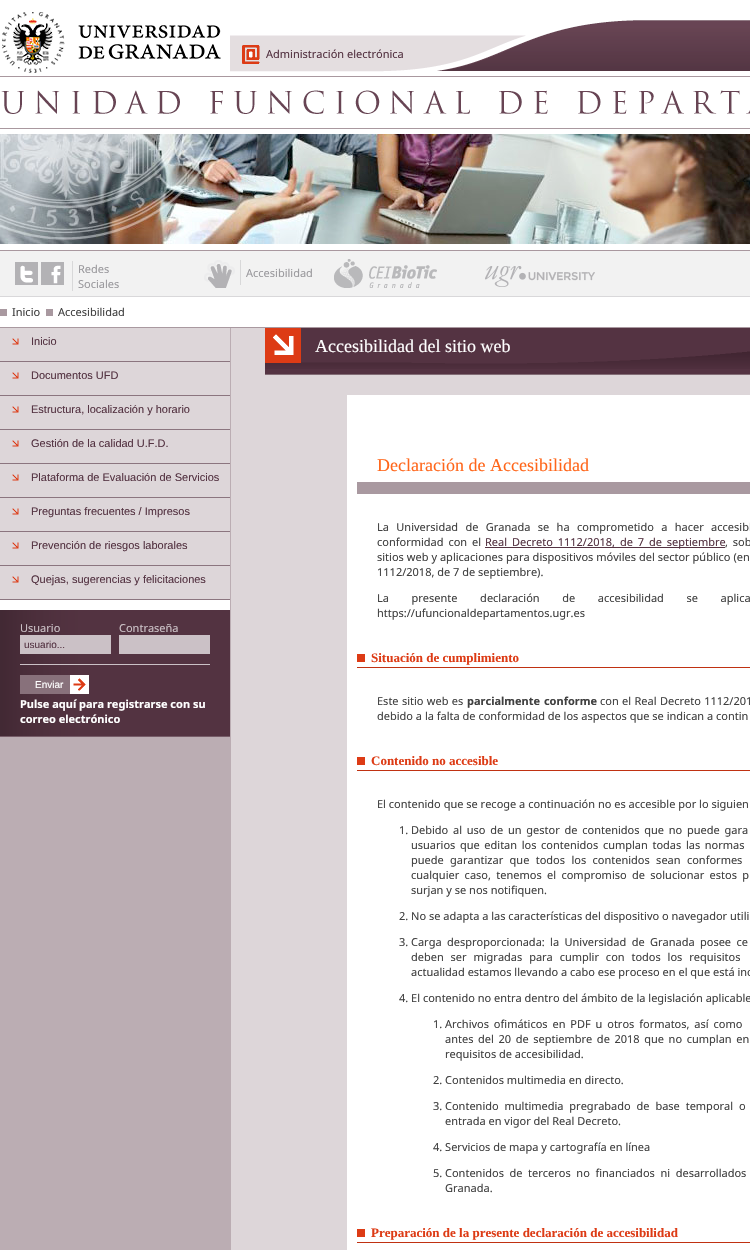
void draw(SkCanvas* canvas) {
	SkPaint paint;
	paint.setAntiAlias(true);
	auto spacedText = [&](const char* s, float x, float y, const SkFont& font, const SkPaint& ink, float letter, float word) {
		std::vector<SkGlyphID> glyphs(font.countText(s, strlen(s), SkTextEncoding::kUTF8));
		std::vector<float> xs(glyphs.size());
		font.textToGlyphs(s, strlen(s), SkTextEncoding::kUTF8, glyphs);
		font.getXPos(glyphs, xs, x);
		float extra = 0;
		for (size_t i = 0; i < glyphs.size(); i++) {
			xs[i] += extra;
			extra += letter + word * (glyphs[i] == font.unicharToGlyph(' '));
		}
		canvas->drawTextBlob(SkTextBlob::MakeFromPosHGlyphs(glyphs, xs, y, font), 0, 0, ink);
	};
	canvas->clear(0xffffffff);
	canvas->drawImageRect(SkImages::DeferredFromEncodedData(SkData::MakeFromFileName("img1.png")), SkRect::MakeXYWH(0, 12, 750, 239), SkSamplingOptions());
	canvas->drawImageRect(SkImages::DeferredFromEncodedData(SkData::MakeFromFileName("img2.png")), SkRect::MakeXYWH(242, 45, 18, 19), SkSamplingOptions());
	SkFont f1(fontMgr->matchFamilyStyle("Noto Sans", SkFontStyle::Normal()), 11);
	f1.setSubpixel(true);
	paint.setColor(0xff543342);
	canvas->drawString("Administración electrónica", 266, 58, f1, paint);
	canvas->drawImageRect(SkImages::DeferredFromEncodedData(SkData::MakeFromFileName("img3.png")), SkRect::MakeXYWH(0, 134, 750, 110), SkSamplingOptions());
	paint.setColor(0xfff2f2f2);
	canvas->drawRect(SkRect::MakeXYWH(0, 251, 750, 45), paint);
	paint.setColor(0xffd9d8da);
	canvas->drawRect(SkRect::MakeXYWH(0, 296, 750, 1), paint);
	canvas->drawImageRect(SkImages::DeferredFromEncodedData(SkData::MakeFromFileName("img4.png")), SkRect::MakeXYWH(15, 262, 23, 23), SkSamplingOptions());
	canvas->drawImageRect(SkImages::DeferredFromEncodedData(SkData::MakeFromFileName("img5.png")), SkRect::MakeXYWH(41, 262, 23, 23), SkSamplingOptions());
	paint.setColor(0xffd8d8d9);
	canvas->drawRect(SkRect::MakeXYWH(72, 261, 1, 30), paint);
	paint.setColor(0xff9a999d);
	canvas->drawString("Redes", 78, 273, f1, paint);
	canvas->drawString("Sociales", 78, 288, f1, paint);
	canvas->drawImageRect(SkImages::DeferredFromEncodedData(SkData::MakeFromFileName("img6.png")), SkRect::MakeXYWH(204, 260, 31, 28), SkSamplingOptions());
	paint.setColor(0xffd8d8d9);
	canvas->drawRect(SkRect::MakeXYWH(240, 260, 1, 25), paint);
	paint.setColor(0xff9a999d);
	canvas->drawString("Accesibilidad", 246, 277, f1, paint);
	canvas->drawImageRect(SkImages::DeferredFromEncodedData(SkData::MakeFromFileName("img7.png")), SkRect::MakeXYWH(334, 259, 103, 29), SkSamplingOptions());
	canvas->drawImageRect(SkImages::DeferredFromEncodedData(SkData::MakeFromFileName("img8.png")), SkRect::MakeXYWH(485, 266, 110, 21), SkSamplingOptions());
	canvas->drawImageRect(SkImages::DeferredFromEncodedData(SkData::MakeFromFileName("img9.png")), SkRect::MakeXYWH(0, 328, 750, 922), SkSamplingOptions());
	paint.setColor(0xffa999a0);
	canvas->drawRect(SkRect::MakeXYWH(0, 327, 750, 1), paint);
	paint.setColor(0xff404040);
	canvas->drawString("Inicio", 12, 316, f1, paint);
	paint.setColor(0xffa999a0);
	canvas->drawRect(SkRect::MakeXYWH(0, 309, 7, 7), paint);
	paint.setColor(0xff404040);
	canvas->drawString("Accesibilidad", 58, 316, f1, paint);
	paint.setColor(0xffa999a0);
	canvas->drawRect(SkRect::MakeXYWH(46, 309, 7, 7), paint);
	paint.setColor(0xffddd6d9);
	canvas->drawRect(SkRect::MakeXYWH(0, 328, 230, 33), paint);
	canvas->drawImageRect(SkImages::DeferredFromEncodedData(SkData::MakeFromFileName("img10.png")), SkRect::MakeXYWH(12, 338, 7, 7), SkSamplingOptions());
	paint.setColor(0xff8b757f);
	canvas->drawRect(SkRect::MakeXYWH(0, 361, 230, 1), paint);
	SkFont f2(fontMgr->matchFamilyStyle("Liberation Sans", SkFontStyle::Normal()), 11);
	f2.setSubpixel(true);
	paint.setColor(0xff543342);
	canvas->drawString("Inicio", 31, 345, f2, paint);
	paint.setColor(0xffddd6d9);
	canvas->drawRect(SkRect::MakeXYWH(0, 362, 230, 33), paint);
	canvas->drawImageRect(SkImages::DeferredFromEncodedData(SkData::MakeFromFileName("img10.png")), SkRect::MakeXYWH(12, 372, 7, 7), SkSamplingOptions());
	paint.setColor(0xff8b757f);
	canvas->drawRect(SkRect::MakeXYWH(0, 395, 230, 1), paint);
	paint.setColor(0xff543342);
	canvas->drawString("Documentos UFD", 31, 379, f2, paint);
	paint.setColor(0xffddd6d9);
	canvas->drawRect(SkRect::MakeXYWH(0, 396, 230, 33), paint);
	canvas->drawImageRect(SkImages::DeferredFromEncodedData(SkData::MakeFromFileName("img10.png")), SkRect::MakeXYWH(12, 406, 7, 7), SkSamplingOptions());
	paint.setColor(0xff8b757f);
	canvas->drawRect(SkRect::MakeXYWH(0, 429, 230, 1), paint);
	paint.setColor(0xff543342);
	canvas->drawString("Estructura, localización y horario", 31, 413, f2, paint);
	paint.setColor(0xffddd6d9);
	canvas->drawRect(SkRect::MakeXYWH(0, 430, 230, 33), paint);
	canvas->drawImageRect(SkImages::DeferredFromEncodedData(SkData::MakeFromFileName("img10.png")), SkRect::MakeXYWH(12, 440, 7, 7), SkSamplingOptions());
	paint.setColor(0xff8b757f);
	canvas->drawRect(SkRect::MakeXYWH(0, 463, 230, 1), paint);
	paint.setColor(0xff543342);
	canvas->drawString("Gestión de la calidad U.F.D.", 31, 447, f2, paint);
	paint.setColor(0xffddd6d9);
	canvas->drawRect(SkRect::MakeXYWH(0, 464, 230, 33), paint);
	canvas->drawImageRect(SkImages::DeferredFromEncodedData(SkData::MakeFromFileName("img10.png")), SkRect::MakeXYWH(12, 474, 7, 7), SkSamplingOptions());
	paint.setColor(0xff8b757f);
	canvas->drawRect(SkRect::MakeXYWH(0, 497, 230, 1), paint);
	paint.setColor(0xff543342);
	canvas->drawString("Plataforma de Evaluación de Servicios", 31, 481, f2, paint);
	paint.setColor(0xffddd6d9);
	canvas->drawRect(SkRect::MakeXYWH(0, 498, 230, 33), paint);
	canvas->drawImageRect(SkImages::DeferredFromEncodedData(SkData::MakeFromFileName("img10.png")), SkRect::MakeXYWH(12, 508, 7, 7), SkSamplingOptions());
	paint.setColor(0xff8b757f);
	canvas->drawRect(SkRect::MakeXYWH(0, 531, 230, 1), paint);
	paint.setColor(0xff543342);
	canvas->drawString("Preguntas frecuentes / Impresos", 31, 515, f2, paint);
	paint.setColor(0xffddd6d9);
	canvas->drawRect(SkRect::MakeXYWH(0, 532, 230, 33), paint);
	canvas->drawImageRect(SkImages::DeferredFromEncodedData(SkData::MakeFromFileName("img10.png")), SkRect::MakeXYWH(12, 542, 7, 7), SkSamplingOptions());
	paint.setColor(0xff8b757f);
	canvas->drawRect(SkRect::MakeXYWH(0, 565, 230, 1), paint);
	paint.setColor(0xff543342);
	canvas->drawString("Prevención de riesgos laborales", 31, 549, f2, paint);
	paint.setColor(0xffddd6d9);
	canvas->drawRect(SkRect::MakeXYWH(0, 566, 230, 33), paint);
	canvas->drawImageRect(SkImages::DeferredFromEncodedData(SkData::MakeFromFileName("img10.png")), SkRect::MakeXYWH(12, 576, 7, 7), SkSamplingOptions());
	paint.setColor(0xff8b757f);
	canvas->drawRect(SkRect::MakeXYWH(0, 599, 230, 1), paint);
	paint.setColor(0xff543342);
	canvas->drawString("Quejas, sugerencias y felicitaciones", 31, 583, f2, paint);
	paint.setColor(0xffffffff);
	canvas->drawRect(SkRect::MakeXYWH(0, 600, 230, 10), paint);
	canvas->drawImageRect(SkImages::DeferredFromEncodedData(SkData::MakeFromFileName("img11.png")), SkRect::MakeXYWH(0, 610, 230, 126), SkSamplingOptions());
	paint.setColor(0xff765c68);
	canvas->drawRect(SkRect::MakeXYWH(0, 736, 230, 1), paint);
	paint.setColor(0xffcbc1c6);
	canvas->drawString("Usuario", 20, 632, f1, paint);
	canvas->drawRect(SkRect::MakeXYWH(20, 635, 91, 19), paint);
	SkFont f3(fontMgr->matchFamilyStyle("Liberation Sans", SkFontStyle::Normal()), 10);
	f3.setSubpixel(true);
	paint.setColor(0xff543342);
	canvas->drawString("usuario...", 24, 648, f3, paint);
	paint.setColor(0xffcbc1c6);
	canvas->drawString("Contraseña", 119, 632, f1, paint);
	canvas->drawRect(SkRect::MakeXYWH(119, 635, 91, 19), paint);
	canvas->drawRect(SkRect::MakeXYWH(20, 664, 190, 1), paint);
	canvas->drawImageRect(SkImages::DeferredFromEncodedData(SkData::MakeFromFileName("img12.png")), SkRect::MakeXYWH(20, 675, 69, 19), SkSamplingOptions());
	paint.setColor(0xffffffff);
	canvas->drawString("Enviar", 35, 688, f3, paint);
	SkFont f4(fontMgr->matchFamilyStyle("Noto Sans", SkFontStyle::Bold()), 11);
	f4.setSubpixel(true);
	canvas->drawString("Pulse aquí para registrarse con su", 20, 708, f4, paint);
	canvas->drawString("correo electrónico", 20, 723, f4, paint);
	paint.setColor(0xff826c75);
	canvas->drawRect(SkRect::MakeXYWH(265, 374, 485, 1), paint);
	paint.setColor(0xff543342);
	canvas->drawRect(SkRect::MakeXYWH(265, 369, 485, 5), paint);
	canvas->drawImageRect(SkImages::DeferredFromEncodedData(SkData::MakeFromFileName("img13.png")), SkRect::MakeXYWH(265, 328, 485, 41), SkSamplingOptions());
	SkFont f5(fontMgr->matchFamilyStyle("Liberation Serif", SkFontStyle::Normal()), 18);
	f5.setSubpixel(true);
	paint.setColor(0xffffffff);
	canvas->drawString("Accesibilidad del sitio web", 315, 352, f5, paint);
	canvas->drawRect(SkRect::MakeXYWH(347, 395, 403, 855), paint);
	paint.setColor(0xffa999a0);
	canvas->drawRect(SkRect::MakeXYWH(357, 482, 393, 12), paint);
	paint.setColor(0xffff661a);
	canvas->drawString("Declaración de Accesibilidad", 377, 471, f5, paint);
	paint.setColor(0xff404040);
	spacedText("La Universidad de Granada se ha comprometido a hacer accesibl", 377, 531, f1, paint, 0, 4.5);
	spacedText("conformidad con el", 377, 546, f1, paint, 0, 2);
	paint.setColor(0xff543342);
	canvas->drawRect(SkRect::MakeXYWH(485, 547, 240, 1), paint);
	spacedText("Real Decreto 1112/2018, de 7 de septiembre", 485, 546, f1, paint, 0, 2);
	paint.setColor(0xff404040);
	spacedText(", sob", 725, 546, f1, paint, 0, 2);
	spacedText("sitios web y aplicaciones para dispositivos móviles del sector público (en", 377, 561, f1, paint, 0, 0.1);
	canvas->drawString("1112/2018, de 7 de septiembre).", 377, 576, f1, paint);
	spacedText("La presente declaración de accesibilidad se aplica", 377, 602, f1, paint, 0, 19.75);
	canvas->drawString("https://ufuncionaldepartamentos.ugr.es", 377, 617, f1, paint);
	paint.setColor(0xffdd3b15);
	canvas->drawRect(SkRect::MakeXYWH(357, 654, 8, 8), paint);
	paint.setColor(0xffc03212);
	canvas->drawRect(SkRect::MakeXYWH(357, 667, 393, 1), paint);
	SkFont f6(fontMgr->matchFamilyStyle("Liberation Serif", SkFontStyle::Bold()), 13);
	f6.setSubpixel(true);
	paint.setColor(0xffdd3b15);
	canvas->drawString("Situación de cumplimiento", 371, 662, f6, paint);
	paint.setColor(0xff404040);
	spacedText("Este sitio web es", 377, 705, f1, paint, 0, 0.5);
	spacedText("parcialmente conforme", 467, 705, f4, paint, 0, 1);
	spacedText("con el Real Decreto 1112/201", 600, 705, f1, paint, 0, 0.5);
	canvas->drawString("debido a la falta de conformidad de los aspectos que se indican a contin", 377, 720, f1, paint);
	paint.setColor(0xffdd3b15);
	canvas->drawRect(SkRect::MakeXYWH(357, 757, 8, 8), paint);
	paint.setColor(0xffc03212);
	canvas->drawRect(SkRect::MakeXYWH(357, 770, 393, 1), paint);
	paint.setColor(0xffdd3b15);
	canvas->drawString("Contenido no accesible", 371, 765, f6, paint);
	paint.setColor(0xff404040);
	canvas->drawString("El contenido que se recoge a continuación no es accesible por lo siguien", 377, 808, f1, paint);
	canvas->drawString("1.", 399, 834, f1, paint);
	spacedText("Debido al uso de un gestor de contenidos que no puede gara", 411, 834, f1, paint, 0, 1.9);
	spacedText("usuarios que editan los contenidos cumplan todas las normas", 411, 849, f1, paint, 0, 1.75);
	spacedText("puede garantizar que todos los contenidos sean conformes", 411, 864, f1, paint, 0, 3.5);
	spacedText("cualquier caso, tenemos el compromiso de solucionar estos p", 411, 879, f1, paint, 0, 2.5);
	canvas->drawString("surjan y se nos notifiquen.", 411, 894, f1, paint);
	canvas->drawString("2. No se adapta a las características del dispositivo o navegador utili", 399, 920, f1, paint);
	canvas->drawString("3.", 399, 946, f1, paint);
	spacedText("Carga desproporcionada: la Universidad de Granada posee ce", 411, 946, f1, paint, 0, 2.5);
	spacedText("deben ser migradas para cumplir con todos los requisitos", 411, 961, f1, paint, 0, 4);
	canvas->drawString("actualidad estamos llevando a cabo ese proceso en el que está inc", 411, 976, f1, paint);
	canvas->drawString("4. El contenido no entra dentro del ámbito de la legislación aplicable", 399, 1002, f1, paint);
	canvas->drawString("1.", 433, 1028, f1, paint);
	spacedText("Archivos ofimáticos en PDF u otros formatos, así como", 445, 1028, f1, paint, 0, 2);
	spacedText("antes del 20 de septiembre de 2018 que no cumplan en", 445, 1043, f1, paint, 0, 1.75);
	canvas->drawString("requisitos de accesibilidad.", 445, 1058, f1, paint);
	canvas->drawString("2. Contenidos multimedia en directo.", 433, 1084, f1, paint);
	canvas->drawString("3.", 433, 1110, f1, paint);
	spacedText("Contenido multimedia pregrabado de base temporal o", 445, 1110, f1, paint, 0, 3);
	canvas->drawString("entrada en vigor del Real Decreto.", 445, 1125, f1, paint);
	canvas->drawString("4. Servicios de mapa y cartografía en línea", 433, 1151, f1, paint);
	canvas->drawString("5.", 433, 1177, f1, paint);
	spacedText("Contenidos de terceros no financiados ni desarrollados", 445, 1177, f1, paint, 0, 2.75);
	canvas->drawString("Granada.", 445, 1192, f1, paint);
	paint.setColor(0xffdd3b15);
	canvas->drawRect(SkRect::MakeXYWH(357, 1229, 8, 8), paint);
	paint.setColor(0xffc03212);
	canvas->drawRect(SkRect::MakeXYWH(357, 1242, 393, 1), paint);
	paint.setColor(0xffdd3b15);
	canvas->drawString("Preparación de la presente declaración de accesibilidad", 371, 1237, f6, paint);
}
